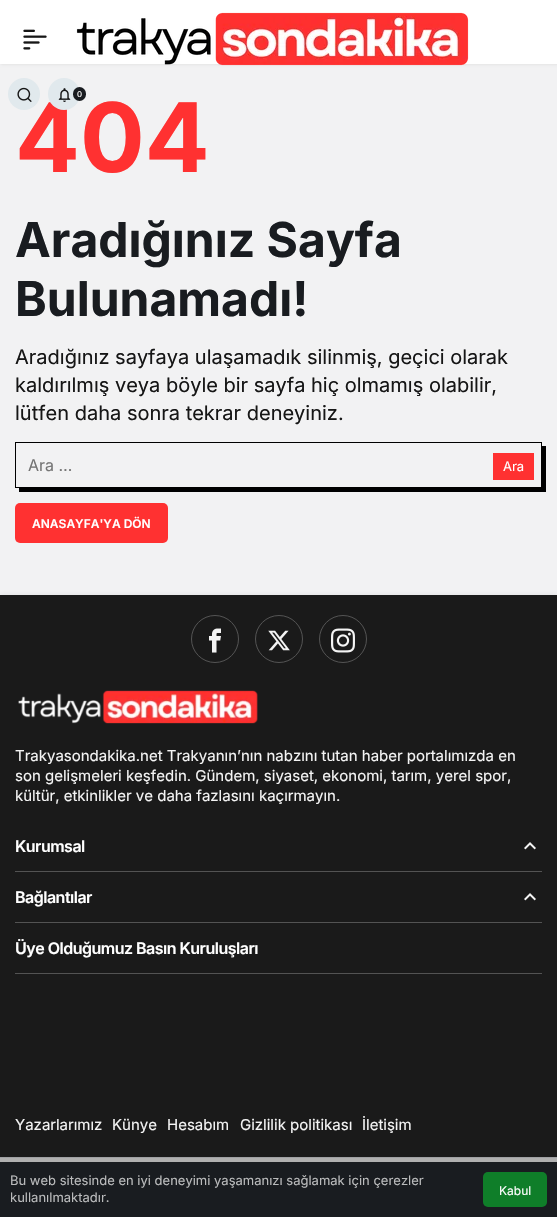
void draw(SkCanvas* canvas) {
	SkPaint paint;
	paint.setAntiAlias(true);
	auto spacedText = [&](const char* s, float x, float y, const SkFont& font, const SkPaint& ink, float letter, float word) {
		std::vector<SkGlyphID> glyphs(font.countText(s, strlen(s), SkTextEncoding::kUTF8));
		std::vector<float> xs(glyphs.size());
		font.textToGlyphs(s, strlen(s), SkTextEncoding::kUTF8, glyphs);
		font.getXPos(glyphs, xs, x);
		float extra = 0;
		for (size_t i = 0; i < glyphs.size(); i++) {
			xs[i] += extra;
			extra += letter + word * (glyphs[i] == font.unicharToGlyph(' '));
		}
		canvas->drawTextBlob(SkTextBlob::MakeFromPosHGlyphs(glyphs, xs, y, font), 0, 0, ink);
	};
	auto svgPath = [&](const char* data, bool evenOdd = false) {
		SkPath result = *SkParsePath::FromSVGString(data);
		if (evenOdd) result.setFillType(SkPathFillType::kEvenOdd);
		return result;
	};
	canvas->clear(0xfff2f2f3);
	paint.setColor(0x1a000000);
	paint.setMaskFilter(SkMaskFilter::MakeBlur(kNormal_SkBlurStyle, 1.5));
	canvas->drawRect(SkRect::MakeXYWH(1, 0, 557, 64), paint);
	paint.setMaskFilter(nullptr);
	paint.setColor(0xffffffff);
	canvas->drawRect(SkRect::MakeXYWH(0, 0, 557, 64), paint);
	canvas->drawImageRect(SkImages::DeferredFromEncodedData(SkData::MakeFromFileName("img1.png")), SkRect::MakeXYWH(23, 29, 24, 21), SkSamplingOptions());
	canvas->drawImageRect(SkImages::DeferredFromEncodedData(SkData::MakeFromFileName("img2.png")), SkRect::MakeXYWH(76, 12, 393, 54), SkSamplingOptions());
	SkFont f1(fontMgr->matchFamilyStyle("Inter", SkFontStyle::Bold()), 96);
	f1.setSubpixel(true);
	paint.setColor(0xffff3131);
	canvas->drawString("404", 15, 172, f1, paint);
	paint.setColor(0xffe1e9ed);
	canvas->drawCircle(24, 94, 16, paint);
	canvas->drawImageRect(SkImages::DeferredFromEncodedData(SkData::MakeFromFileName("img3.png")), SkRect::MakeXYWH(17, 87, 15, 15), SkSamplingOptions());
	canvas->drawCircle(64, 94, 16, paint);
	canvas->drawImageRect(SkImages::DeferredFromEncodedData(SkData::MakeFromFileName("img4.png")), SkRect::MakeXYWH(58, 88, 13, 14), SkSamplingOptions());
	paint.setColor(0xff191c20);
	canvas->drawRoundRect(SkRect::MakeXYWH(73, 87, 13, 14), 6.5, 6.5, paint);
	SkFont f2(fontMgr->matchFamilyStyle("Inter", SkFontStyle::Normal()), 8);
	f2.setSubpixel(true);
	paint.setColor(0xffffffff);
	canvas->drawString("0", 77, 97, f2, paint);
	SkFont f3(fontMgr->matchFamilyStyle("Inter", SkFontStyle::Bold()), 48);
	f3.setSubpixel(true);
	paint.setColor(0xff191c20);
	canvas->drawString("Aradığınız Sayfa", 15, 257, f3, paint);
	canvas->drawString("Bulunamadı!", 15, 316, f3, paint);
	SkFont f4(fontMgr->matchFamilyStyle("Inter", SkFontStyle::Normal()), 20);
	f4.setSubpixel(true);
	paint.setColor(0xff161616);
	canvas->drawString("Aradığınız sayfaya ulaşamadık silinmiş, geçici olarak", 15, 364, f4, paint);
	canvas->drawString("kaldırılmış veya böyle bir sayfa hiç olmamış olabilir,", 15, 392, f4, paint);
	canvas->drawString("lütfen daha sonra tekrar deneyiniz.", 15, 420, f4, paint);
	paint.setColor(0xff000000);
	canvas->drawPath(svgPath("M19 488V492H546V446H542V488Z"), paint);
	paint.setStroke(true);
	paint.setStrokeWidth(1);
	canvas->drawRect(SkRect::MakeXYWH(15.5, 442.5, 526, 45), paint);
	SkFont f5(fontMgr->matchFamilyStyle("Inter", SkFontStyle::Normal()), 16);
	f5.setSubpixel(true);
	paint.setStroke(false);
	paint.setColor(0xff757575);
	canvas->drawString("Ara …", 28, 471, f5, paint);
	paint.setColor(0xffff3131);
	canvas->drawRect(SkRect::MakeXYWH(493, 453, 41, 27), paint);
	SkFont f6(fontMgr->matchFamilyStyle("Inter", SkFontStyle::Normal()), 13);
	f6.setSubpixel(true);
	paint.setColor(0xffffffff);
	canvas->drawString("Ara", 503, 471, f6, paint);
	paint.setColor(0xffff3131);
	canvas->drawRoundRect(SkRect::MakeXYWH(15, 503, 153, 40), 5, 5, paint);
	SkFont f7(fontMgr->matchFamilyStyle("Inter", SkFontStyle(600, SkFontStyle::kNormal_Width, SkFontStyle::kUpright_Slant)), 12);
	f7.setSubpixel(true);
	paint.setColor(0xffffffff);
	canvas->drawString("ANASAYFA'YA DÖN", 32, 528, f7, paint);
	paint.setColor(0x1a32353d);
	paint.setMaskFilter(SkMaskFilter::MakeBlur(kNormal_SkBlurStyle, 2.5));
	canvas->drawRect(SkRect::MakeXYWH(0, 595, 557, 606), paint);
	paint.setMaskFilter(nullptr);
	paint.setColor(0xff1a1a1a);
	canvas->drawRect(SkRect::MakeXYWH(0, 595, 557, 567), paint);
	paint.setStroke(true);
	paint.setColor(0xff535353);
	canvas->drawCircle(215, 639, 23.5, paint);
	canvas->drawImageRect(SkImages::DeferredFromEncodedData(SkData::MakeFromFileName("img5.png")), SkRect::MakeXYWH(209, 628, 12, 25), SkSamplingOptions());
	canvas->drawCircle(279, 639, 23.5, paint);
	canvas->drawImageRect(SkImages::DeferredFromEncodedData(SkData::MakeFromFileName("img6.png")), SkRect::MakeXYWH(268, 630, 22, 21), SkSamplingOptions());
	canvas->drawCircle(343, 639, 23.5, paint);
	canvas->drawImageRect(SkImages::DeferredFromEncodedData(SkData::MakeFromFileName("img7.png")), SkRect::MakeXYWH(331, 628, 24, 25), SkSamplingOptions());
	canvas->drawImageRect(SkImages::DeferredFromEncodedData(SkData::MakeFromFileName("img8.png")), SkRect::MakeXYWH(18, 690, 240, 34), SkSamplingOptions());
	SkFont f8(fontMgr->matchFamilyStyle("Inter", SkFontStyle::Normal()), 15);
	f8.setSubpixel(true);
	paint.setStroke(false);
	paint.setColor(0xfff4f4f4);
	canvas->drawString("Trakyasondakika.net Trakyanın’nın nabzını tutan haber portalımızda en", 15, 761, f8, paint);
	canvas->drawString("son gelişmeleri keşfedin. Gündem, siyaset, ekonomi, tarım, yerel spor,", 15, 781, f8, paint);
	canvas->drawString("kültür, etkinlikler ve daha fazlasını kaçırmayın.", 15, 801, f8, paint);
	paint.setColor(0xff535353);
	canvas->drawRect(SkRect::MakeXYWH(15, 871, 527, 1), paint);
	SkFont f9(fontMgr->matchFamilyStyle("Inter", SkFontStyle(600, SkFontStyle::kNormal_Width, SkFontStyle::kUpright_Slant)), 16);
	f9.setSubpixel(true);
	paint.setColor(0xffffffff);
	spacedText("Kurumsal", 15, 852, f9, paint, -0.5, 0);
	canvas->drawImageRect(SkImages::DeferredFromEncodedData(SkData::MakeFromFileName("img9.png")), SkRect::MakeXYWH(524, 842, 12, 8), SkSamplingOptions());
	paint.setColor(0xff535353);
	canvas->drawRect(SkRect::MakeXYWH(15, 922, 527, 1), paint);
	paint.setColor(0xffffffff);
	spacedText("Bağlantılar", 15, 903, f9, paint, -0.5, 0);
	canvas->drawImageRect(SkImages::DeferredFromEncodedData(SkData::MakeFromFileName("img9.png")), SkRect::MakeXYWH(524, 893, 12, 8), SkSamplingOptions());
	paint.setColor(0xff535353);
	canvas->drawRect(SkRect::MakeXYWH(15, 973, 527, 1), paint);
	paint.setColor(0xffffffff);
	spacedText("Üye Olduğumuz Basın Kuruluşları", 15, 954, f9, paint, -0.5, 0);
	paint.setColor(0xfff4f4f4);
	canvas->drawString("Yazarlarımız", 15, 1130, f8, paint);
	canvas->drawString("Künye", 112, 1130, f8, paint);
	canvas->drawString("Hesabım", 167, 1130, f8, paint);
	canvas->drawString("Gizlilik politikası", 240, 1130, f8, paint);
	canvas->drawString("İletişim", 362, 1130, f8, paint);
	paint.setColor(0xff191c20);
	canvas->drawRect(SkRect::MakeXYWH(0, 1162, 557, 55), paint);
	paint.setColor(0xffbabbbc);
	canvas->drawString("Bu web sitesinde en iyi deneyimi yaşamanızı sağlamak için çerezler", 10, 1185, f6, paint);
	canvas->drawString("kullanılmaktadır.", 10, 1202, f6, paint);
	paint.setColor(0xff0f7e29);
	canvas->drawRoundRect(SkRect::MakeXYWH(483, 1172, 64, 35), 5, 5, paint);
	SkFont f10(fontMgr->matchFamilyStyle("Inter", SkFontStyle::Normal()), 12);
	f10.setSubpixel(true);
	paint.setColor(0xffffffff);
	canvas->drawString("Kabul", 499, 1195, f10, paint);
	paint.setColor(0xa6ffffff);
	canvas->drawRect(SkRect::MakeXYWH(0, 1157, 557, 5), paint);
	paint.setColor(0x335b616e);
	canvas->drawRect(SkRect::MakeXYWH(0, 1157, 557, 1), paint);
}
